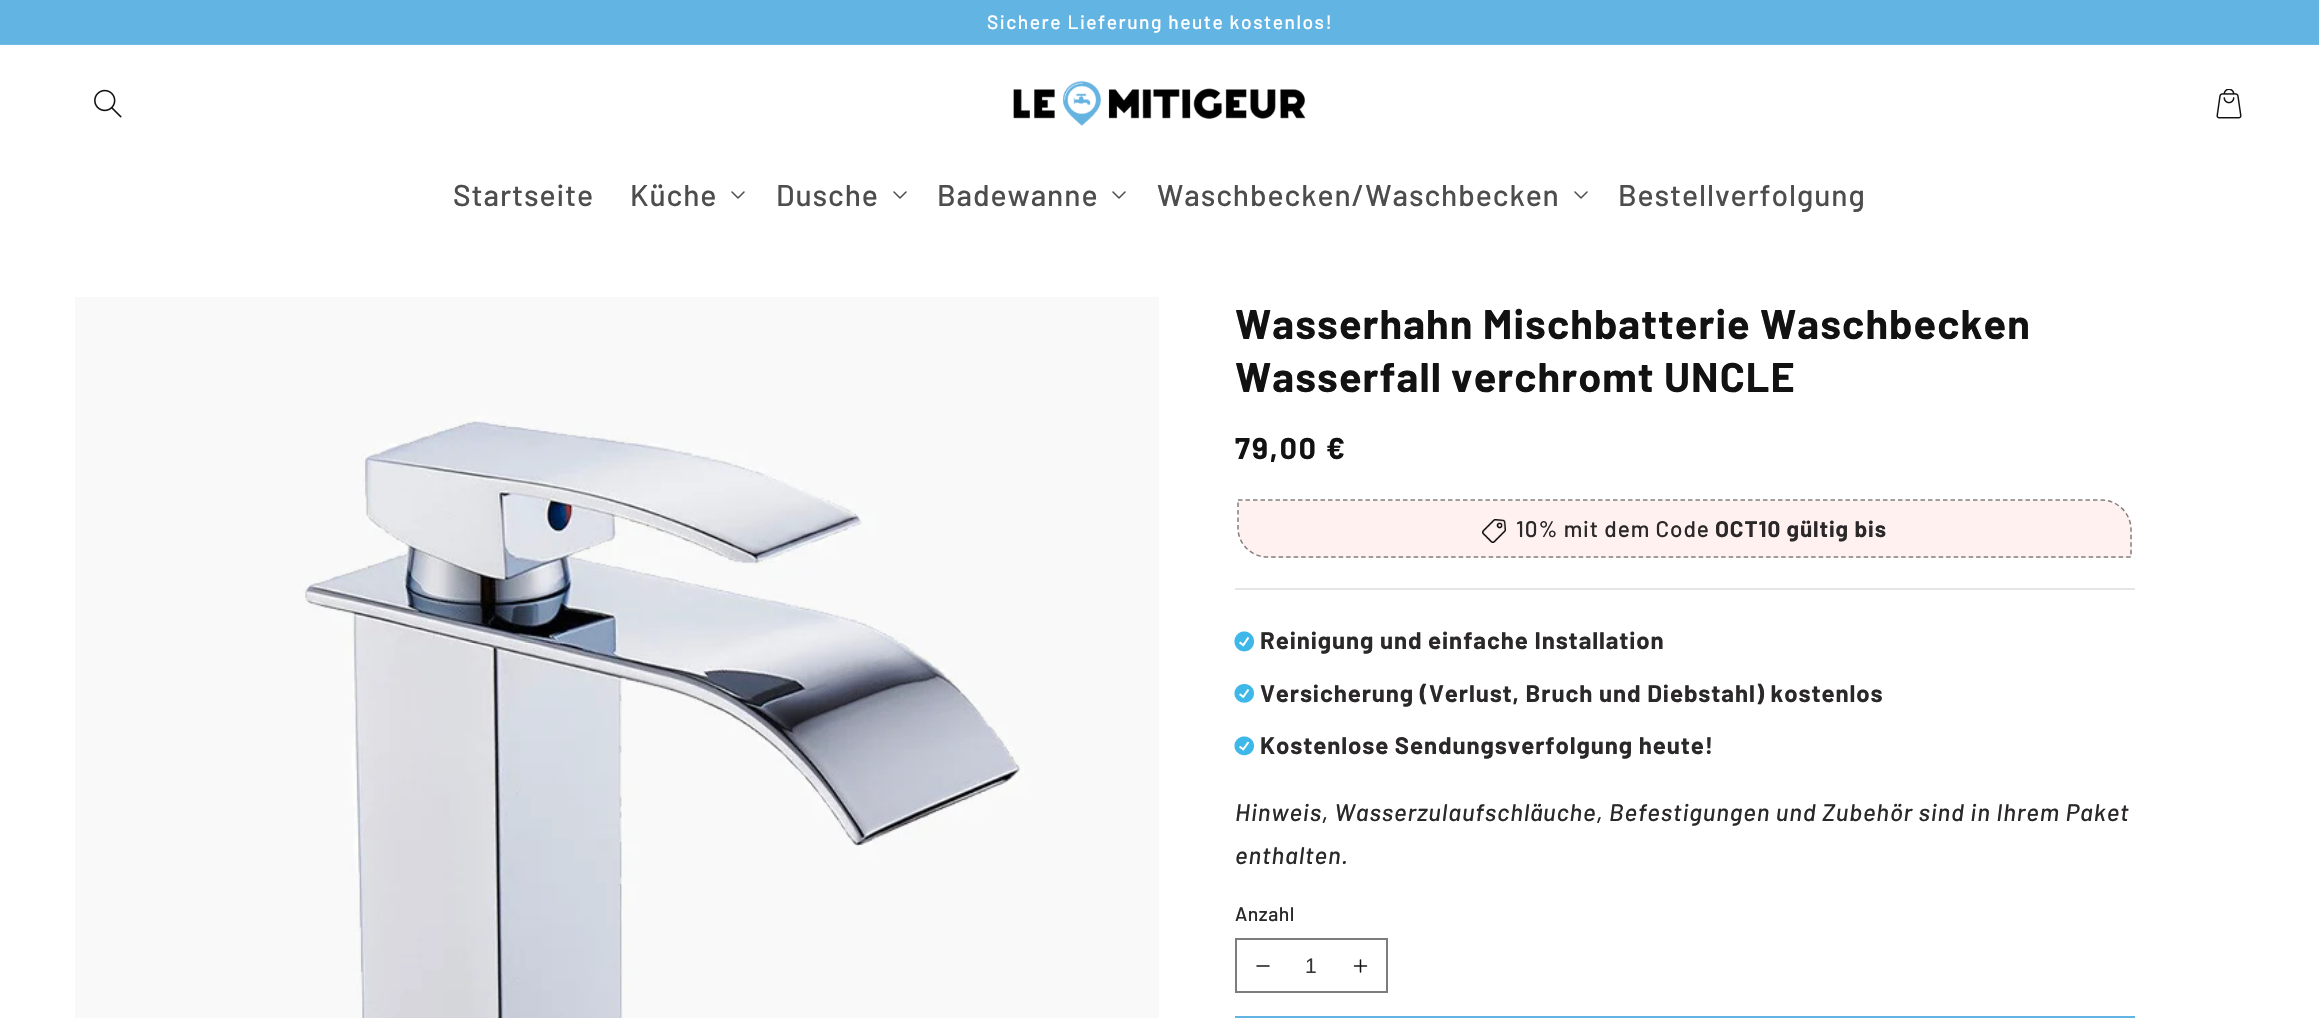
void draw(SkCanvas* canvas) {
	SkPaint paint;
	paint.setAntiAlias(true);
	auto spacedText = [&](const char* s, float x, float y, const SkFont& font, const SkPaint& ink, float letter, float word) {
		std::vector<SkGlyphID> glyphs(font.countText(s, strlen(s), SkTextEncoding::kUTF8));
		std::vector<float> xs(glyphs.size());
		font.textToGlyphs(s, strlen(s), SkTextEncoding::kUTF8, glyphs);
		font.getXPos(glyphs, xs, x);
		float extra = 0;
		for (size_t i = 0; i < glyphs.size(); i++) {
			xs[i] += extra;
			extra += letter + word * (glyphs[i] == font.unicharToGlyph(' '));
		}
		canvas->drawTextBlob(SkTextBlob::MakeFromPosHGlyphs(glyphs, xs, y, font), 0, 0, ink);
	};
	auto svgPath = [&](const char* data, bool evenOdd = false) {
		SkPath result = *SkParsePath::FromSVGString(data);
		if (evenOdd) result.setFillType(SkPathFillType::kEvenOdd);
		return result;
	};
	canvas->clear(0xffffffff);
	paint.setColor(0xff62b4e3);
	canvas->drawRect(SkRect::MakeXYWH(0, 0, 2319, 44), paint);
	paint.setColor(0xff6fbae5);
	canvas->drawRect(SkRect::MakeXYWH(0, 44, 2319, 1), paint);
	SkFont f1(fontMgr->matchFamilyStyle("Barlow", SkFontStyle(500, SkFontStyle::kNormal_Width, SkFontStyle::kUpright_Slant)), 19.25);
	f1.setSubpixel(true);
	paint.setColor(0xffffffff);
	spacedText("Sichere Lieferung heute kostenlos!", 987, 29, f1, paint, 1.5, 0);
	canvas->drawImageRect(SkImages::DeferredFromEncodedData(SkData::MakeFromFileName("img1.png")), SkRect::MakeXYWH(94, 89, 28, 29), SkSamplingOptions());
	canvas->drawImageRect(SkImages::DeferredFromEncodedData(SkData::MakeFromFileName("img2.png")), SkRect::MakeXYWH(1013, 80, 293, 46), SkSamplingOptions());
	canvas->drawImageRect(SkImages::DeferredFromEncodedData(SkData::MakeFromFileName("img3.png")), SkRect::MakeXYWH(2216, 89, 26, 30), SkSamplingOptions());
	SkFont f2(fontMgr->matchFamilyStyle("Barlow", SkFontStyle(500, SkFontStyle::kNormal_Width, SkFontStyle::kUpright_Slant)), 30);
	f2.setSubpixel(true);
	paint.setColor(0xff4d4d4d);
	spacedText("Startseite", 453, 206, f2, paint, 0.9, 0);
	spacedText("Küche", 630, 206, f2, paint, 0.9, 0);
	canvas->drawImageRect(SkImages::DeferredFromEncodedData(SkData::MakeFromFileName("img4.png")), SkRect::MakeXYWH(731, 191, 14, 8), SkSamplingOptions());
	spacedText("Dusche", 776, 206, f2, paint, 0.9, 0);
	canvas->drawImageRect(SkImages::DeferredFromEncodedData(SkData::MakeFromFileName("img4.png")), SkRect::MakeXYWH(893, 191, 14, 8), SkSamplingOptions());
	spacedText("Badewanne", 937, 206, f2, paint, 0.9, 0);
	canvas->drawImageRect(SkImages::DeferredFromEncodedData(SkData::MakeFromFileName("img4.png")), SkRect::MakeXYWH(1112, 191, 14, 8), SkSamplingOptions());
	spacedText("Waschbecken/Waschbecken", 1157, 206, f2, paint, 0.9, 0);
	canvas->drawImageRect(SkImages::DeferredFromEncodedData(SkData::MakeFromFileName("img4.png")), SkRect::MakeXYWH(1574, 191, 14, 8), SkSamplingOptions());
	spacedText("Bestellverfolgung", 1618, 206, f2, paint, 0.9, 0);
	canvas->drawImageRect(SkImages::DeferredFromEncodedData(SkData::MakeFromFileName("img5.png")), SkRect::MakeXYWH(75, 297, 1084, 721), SkSamplingOptions());
	SkFont f3(fontMgr->matchFamilyStyle("Barlow", SkFontStyle::Bold()), 41.4);
	f3.setSubpixel(true);
	paint.setColor(0xff121212);
	spacedText("Wasserhahn Mischbatterie Waschbecken", 1235, 339, f3, paint, 1.05, 0);
	spacedText("Wasserfall verchromt UNCLE", 1235, 392, f3, paint, 1.05, 0);
	SkFont f4(fontMgr->matchFamilyStyle("Barlow", SkFontStyle::Bold()), 30);
	f4.setSubpixel(true);
	spacedText("79,00 €", 1235, 459, f4, paint, 2, 0);
	paint.setColor(0xfffff1f0);
	canvas->drawPath(svgPath("M1238 500H2102C2118.5 500 2132 513.5 2132 530V558H1268C1251.5 558 1238 544.5 1238 528Z"), paint);
	paint.setStroke(true);
	paint.setStrokeWidth(1.5);
	paint.setColor(0xff808080);
	paint.setPathEffect(SkDashPathEffect::Make({{4.5f, 3}}, 0));
	canvas->drawPath(svgPath("M1238 500H2101.5C2117.5 500 2131 513.5 2131 529.5V557H1267.5C1251.5 557 1238 544 1238 528Z"), paint);
	paint.setPathEffect(nullptr);
	canvas->drawImageRect(SkImages::DeferredFromEncodedData(SkData::MakeFromFileName("img6.png")), SkRect::MakeXYWH(1482, 519, 24, 24), SkSamplingOptions());
	SkFont f5(fontMgr->matchFamilyStyle("Barlow", SkFontStyle(500, SkFontStyle::kNormal_Width, SkFontStyle::kUpright_Slant)), 22.5);
	f5.setSubpixel(true);
	paint.setStroke(false);
	paint.setColor(0xff2a2828);
	spacedText("10% mit dem Code", 1516, 537, f5, paint, 0.9, 0);
	SkFont f6(fontMgr->matchFamilyStyle("Barlow", SkFontStyle::Bold()), 22.5);
	f6.setSubpixel(true);
	spacedText("OCT10 gültig bis", 1715, 537, f6, paint, 0.9, 0);
	paint.setColor(0xffe5e5e5);
	canvas->drawRect(SkRect::MakeXYWH(1235, 588, 900, 2), paint);
	canvas->drawImageRect(SkImages::DeferredFromEncodedData(SkData::MakeFromFileName("img7.png")), SkRect::MakeXYWH(1234, 631, 20, 21), SkSamplingOptions());
	SkFont f7(fontMgr->matchFamilyStyle("Barlow", SkFontStyle::Bold()), 24);
	f7.setSubpixel(true);
	paint.setColor(0xff2a2828);
	spacedText("Reinigung und einfache Installation", 1260, 649, f7, paint, 0.9, 0);
	canvas->drawImageRect(SkImages::DeferredFromEncodedData(SkData::MakeFromFileName("img8.png")), SkRect::MakeXYWH(1234, 684, 20, 19), SkSamplingOptions());
	spacedText("Versicherung (Verlust, Bruch und Diebstahl) kostenlos", 1260, 702, f7, paint, 0.9, 0);
	canvas->drawImageRect(SkImages::DeferredFromEncodedData(SkData::MakeFromFileName("img9.png")), SkRect::MakeXYWH(1234, 736, 20, 20), SkSamplingOptions());
	spacedText("Kostenlose Sendungsverfolgung heute!", 1260, 754, f7, paint, 0.9, 0);
	SkFont f8(fontMgr->matchFamilyStyle("Barlow", SkFontStyle(500, SkFontStyle::kNormal_Width, SkFontStyle::kItalic_Slant)), 24);
	f8.setSubpixel(true);
	spacedText("Hinweis, Wasserzulaufschläuche, Befestigungen und Zubehör sind in Ihrem Paket", 1235, 821, f8, paint, 0.9, 0);
	spacedText("enthalten.", 1235, 864, f8, paint, 0.9, 0);
	SkFont f9(fontMgr->matchFamilyStyle("Barlow", SkFontStyle(500, SkFontStyle::kNormal_Width, SkFontStyle::kUpright_Slant)), 19.5);
	f9.setSubpixel(true);
	spacedText("Anzahl", 1235, 921, f9, paint, 0.5, 0);
	canvas->drawImageRect(SkImages::DeferredFromEncodedData(SkData::MakeFromFileName("img10.png")), SkRect::MakeXYWH(1256, 965, 14, 2), SkSamplingOptions());
	canvas->drawImageRect(SkImages::DeferredFromEncodedData(SkData::MakeFromFileName("img11.png")), SkRect::MakeXYWH(1353, 959, 15, 14), SkSamplingOptions());
	paint.setStroke(true);
	paint.setStrokeWidth(2);
	paint.setColor(0xff7d7d7d);
	canvas->drawRect(SkRect::MakeXYWH(1236, 939, 151, 53), paint);
	SkFont f10(fontMgr->matchFamilyStyle("Liberation Sans", SkFontStyle::Normal()), 21);
	f10.setSubpixel(true);
	paint.setStroke(false);
	paint.setColor(0xff363636);
	canvas->drawString("1", 1305, 973, f10, paint);
	paint.setColor(0xff62b4e3);
	canvas->drawRect(SkRect::MakeXYWH(1235, 1016, 900, 2), paint);
}
